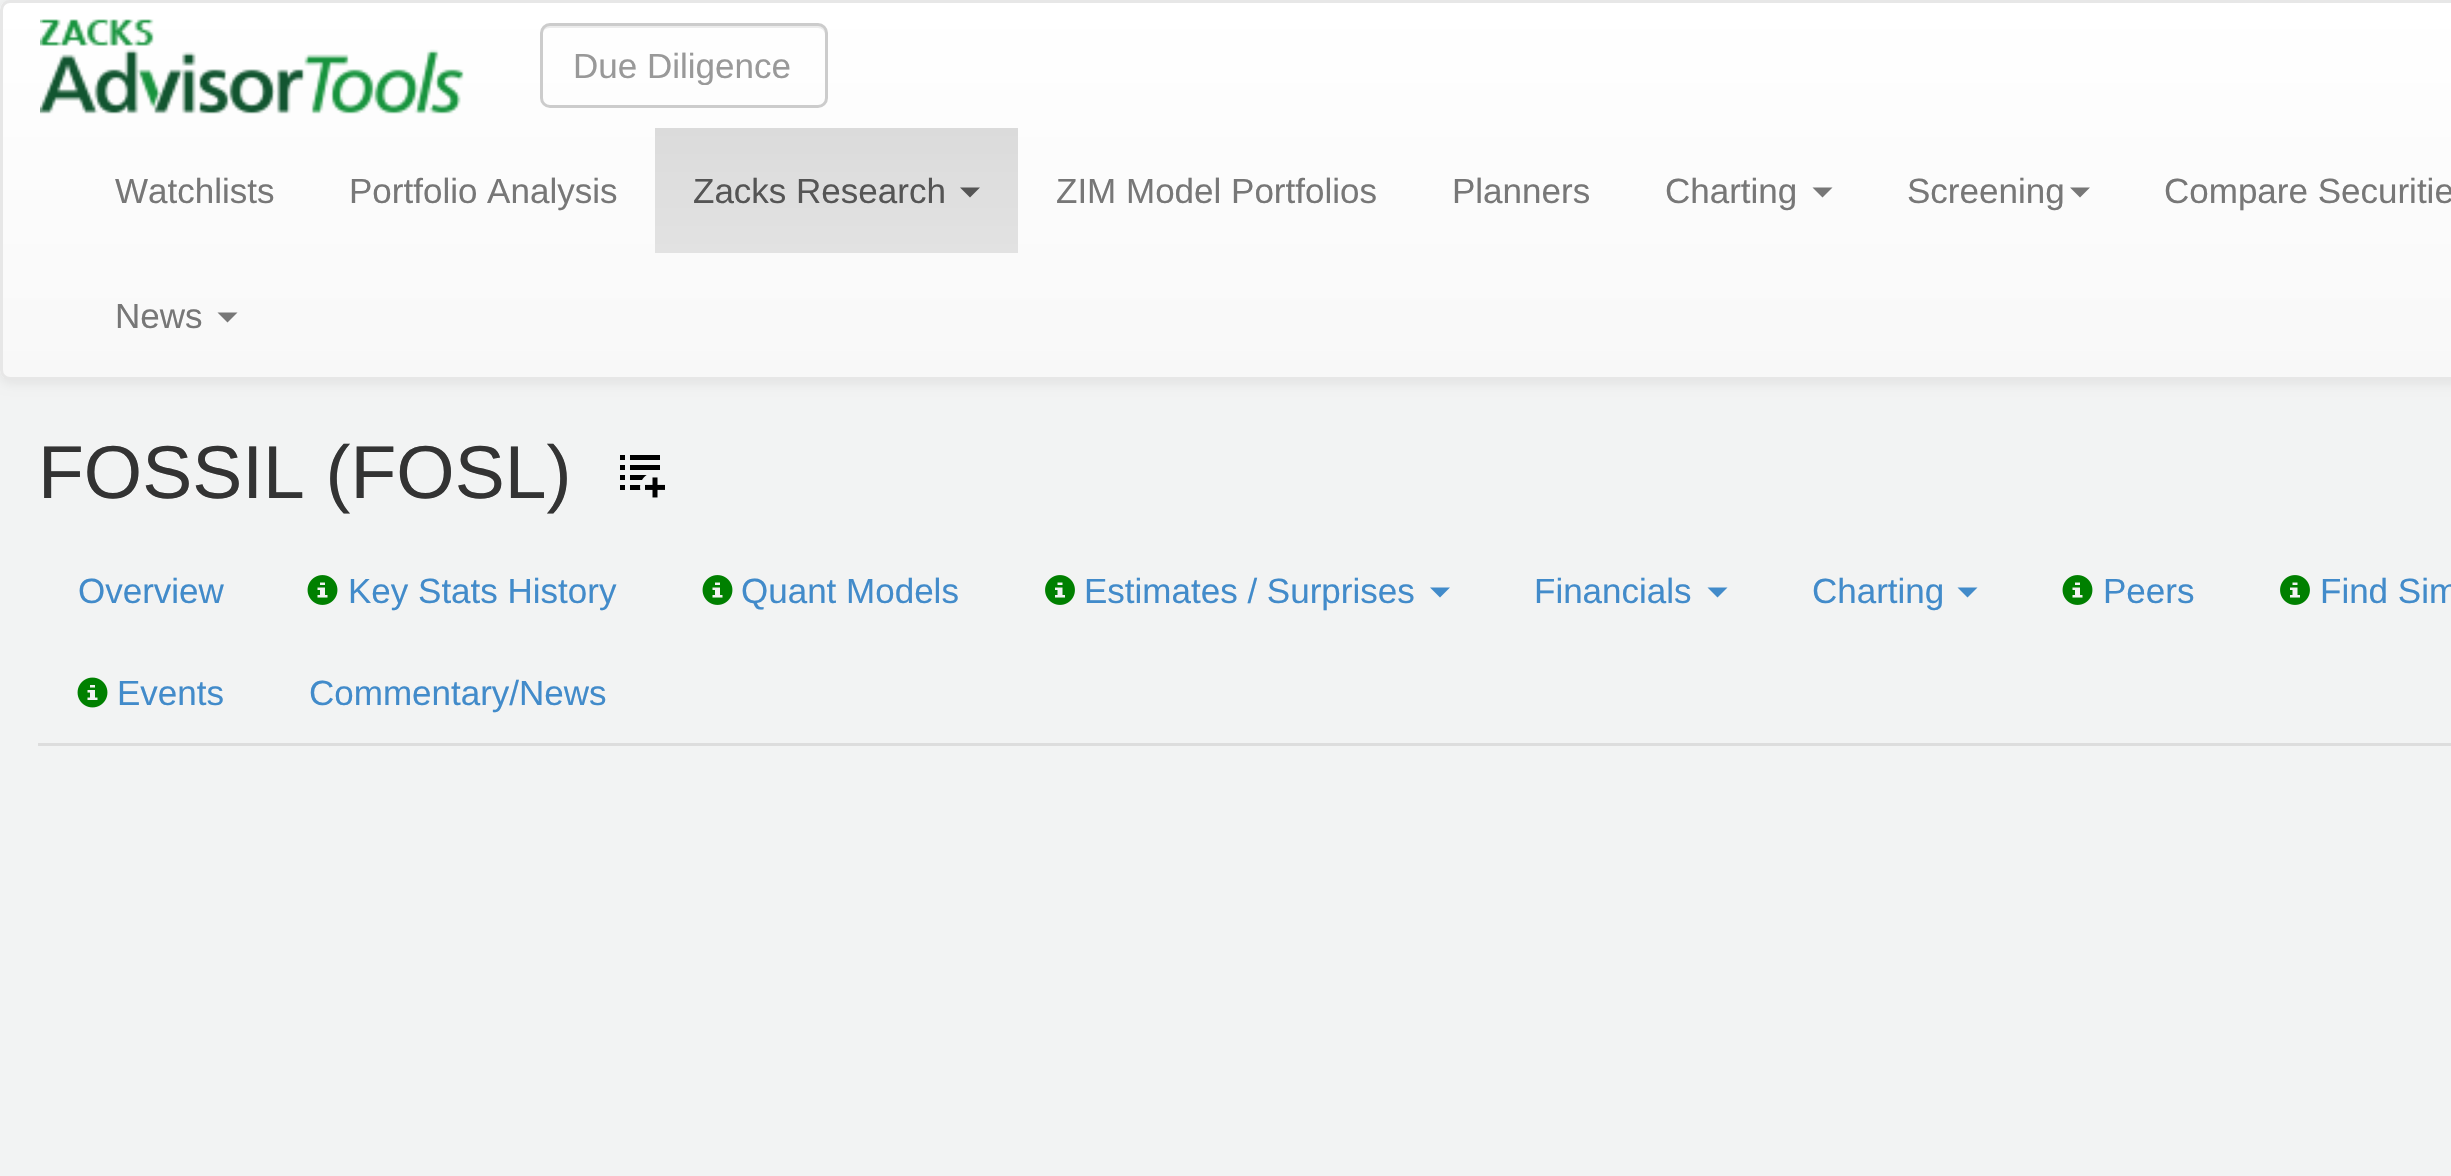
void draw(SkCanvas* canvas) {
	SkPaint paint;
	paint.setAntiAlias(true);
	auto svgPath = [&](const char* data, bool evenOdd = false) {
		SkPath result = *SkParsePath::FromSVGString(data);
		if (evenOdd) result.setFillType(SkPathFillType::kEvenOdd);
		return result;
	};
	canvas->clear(0xfff2f3f3);
	paint.setColor(0x12000000);
	paint.setMaskFilter(SkMaskFilter::MakeBlur(kNormal_SkBlurStyle, 6));
	canvas->drawRoundRect(SkRect::MakeXYWH(0, 3, 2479, 380), 10, 10, paint);
	paint.setMaskFilter(nullptr);
	canvas->save();
	canvas->clipPath(svgPath("M10 0H2990C2995.5 0 3000 4.5 3000 10V370C3000 375.5 2995.5 380 2990 380H10C4.5 380 0 375.5 0 370V10C0 4.5 4.5 0 10 0Z"), true);
	{
		const SkColor colors[] = {0xffffffff, 0xfff8f8f8};
		const float stops[] = {0, 1};
		const SkPoint ends[] = {{1500, 2.5}, {1500, 378}};
		paint.setShader(SkGradientShader::MakeLinear(ends, colors, stops, 2, SkTileMode::kClamp));
		paint.setAlpha(255);
	}
	canvas->drawRect(SkRect::MakeXYWH(0, 3, 2451, 375), paint);
	canvas->restore();
	paint.setStroke(true);
	paint.setStrokeWidth(3);
	paint.setShader(nullptr);
	paint.setColor(0xffe7e7e7);
	canvas->drawRoundRect(SkRect::MakeXYWH(1.5, 1.5, 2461, 377), 8.5, 8.5, paint);
	canvas->drawImageRect(SkImages::DeferredFromEncodedData(SkData::MakeFromFileName("img1.png")), SkRect::MakeXYWH(40, 19, 424, 95), SkSamplingOptions());
	paint.setStroke(false);
	paint.setColor(0xffececec);
	canvas->drawPath(svgPath("M550 28H818C822 28 825 31 825 35V33C825 29 821 25 817 25H551C547 25 544 28 543 31C545 29 547 28 550 28Z"), paint);
	paint.setStroke(true);
	paint.setColor(0xffcccccc);
	canvas->drawRoundRect(SkRect::MakeXYWH(541.5, 24.5, 285, 82), 8.5, 8.5, paint);
	canvas->save();
	canvas->clipRect(SkRect::MakeXYWH(573, 45, 222, 40));
	SkFont f1(fontMgr->matchFamilyStyle("Liberation Sans", SkFontStyle::Normal()), 35);
	f1.setSubpixel(true);
	paint.setStroke(false);
	paint.setColor(0xff999999);
	canvas->drawString("Due Diligence", 573, 78, f1, paint);
	canvas->restore();
	paint.setColor(0xff777777);
	canvas->drawString("Watchlists", 115, 203, f1, paint);
	canvas->drawString("Portfolio Analysis", 349, 203, f1, paint);
	{
		const SkColor colors[] = {0xffdbdbdb, 0xffe2e2e2};
		const float stops[] = {0, 1};
		const SkPoint ends[] = {{836, 127}, {836, 253}};
		paint.setShader(SkGradientShader::MakeLinear(ends, colors, stops, 2, SkTileMode::kClamp));
		paint.setAlpha(255);
	}
	canvas->drawRect(SkRect::MakeXYWH(655, 128, 363, 125), paint);
	paint.setShader(nullptr);
	paint.setColor(0xff555555);
	canvas->drawString("Zacks Research", 693, 203, f1, paint);
	canvas->drawPath(svgPath("M960 187.5H980L970 197.5Z"), paint);
	paint.setColor(0xff777777);
	canvas->drawString("ZIM Model Portfolios", 1056, 203, f1, paint);
	canvas->drawString("Planners", 1452, 203, f1, paint);
	canvas->drawString("Charting", 1665, 203, f1, paint);
	canvas->drawPath(svgPath("M1812.5 187.5H1832.5L1822.5 197.5Z"), paint);
	canvas->drawString("Screening", 1907, 203, f1, paint);
	canvas->drawPath(svgPath("M2070 187.5H2090L2080 197.5Z"), paint);
	canvas->drawString("Compare Securitie", 2164, 203, f1, paint);
	canvas->drawString("News", 115, 328, f1, paint);
	canvas->drawPath(svgPath("M217.5 312.5H237.5L227.5 322.5Z"), paint);
	SkFont f2(fontMgr->matchFamilyStyle("Liberation Sans", SkFontStyle::Normal()), 75);
	f2.setSubpixel(true);
	paint.setColor(0xff333333);
	canvas->drawString("FOSSIL (FOSL)", 38, 498, f2, paint);
	canvas->drawImageRect(SkImages::DeferredFromEncodedData(SkData::MakeFromFileName("img2.png")), SkRect::MakeXYWH(620, 455, 45, 43), SkSamplingOptions());
	paint.setColor(0xffdddddd);
	canvas->drawRect(SkRect::MakeXYWH(38, 743, 2413, 3), paint);
	paint.setColor(0xff428bca);
	canvas->drawString("Overview", 78, 603, f1, paint);
	canvas->drawImageRect(SkImages::DeferredFromEncodedData(SkData::MakeFromFileName("img3.png")), SkRect::MakeXYWH(307, 575, 31, 30), SkSamplingOptions());
	canvas->drawString("Key Stats History", 348, 603, f1, paint);
	canvas->drawImageRect(SkImages::DeferredFromEncodedData(SkData::MakeFromFileName("img3.png")), SkRect::MakeXYWH(702, 575, 31, 30), SkSamplingOptions());
	canvas->drawString("Quant Models", 741, 603, f1, paint);
	canvas->drawImageRect(SkImages::DeferredFromEncodedData(SkData::MakeFromFileName("img4.png")), SkRect::MakeXYWH(1045, 575, 30, 30), SkSamplingOptions());
	canvas->drawString("Estimates / Surprises", 1084, 603, f1, paint);
	canvas->drawPath(svgPath("M1430 587.5H1450L1440 597.5Z"), paint);
	canvas->drawString("Financials", 1534, 603, f1, paint);
	canvas->drawPath(svgPath("M1707.5 587.5H1727.5L1717.5 597.5Z"), paint);
	canvas->drawString("Charting", 1812, 603, f1, paint);
	canvas->drawPath(svgPath("M1957.5 587.5H1977.5L1967.5 597.5Z"), paint);
	canvas->drawImageRect(SkImages::DeferredFromEncodedData(SkData::MakeFromFileName("img3.png")), SkRect::MakeXYWH(2062, 575, 31, 30), SkSamplingOptions());
	canvas->drawString("Peers", 2103, 603, f1, paint);
	canvas->drawImageRect(SkImages::DeferredFromEncodedData(SkData::MakeFromFileName("img4.png")), SkRect::MakeXYWH(2280, 575, 30, 30), SkSamplingOptions());
	canvas->drawString("Find Sim", 2320, 603, f1, paint);
	canvas->drawImageRect(SkImages::DeferredFromEncodedData(SkData::MakeFromFileName("img5.png")), SkRect::MakeXYWH(77, 677, 31, 31), SkSamplingOptions());
	canvas->drawString("Events", 117, 705, f1, paint);
	canvas->drawString("Commentary/News", 309, 705, f1, paint);
}
